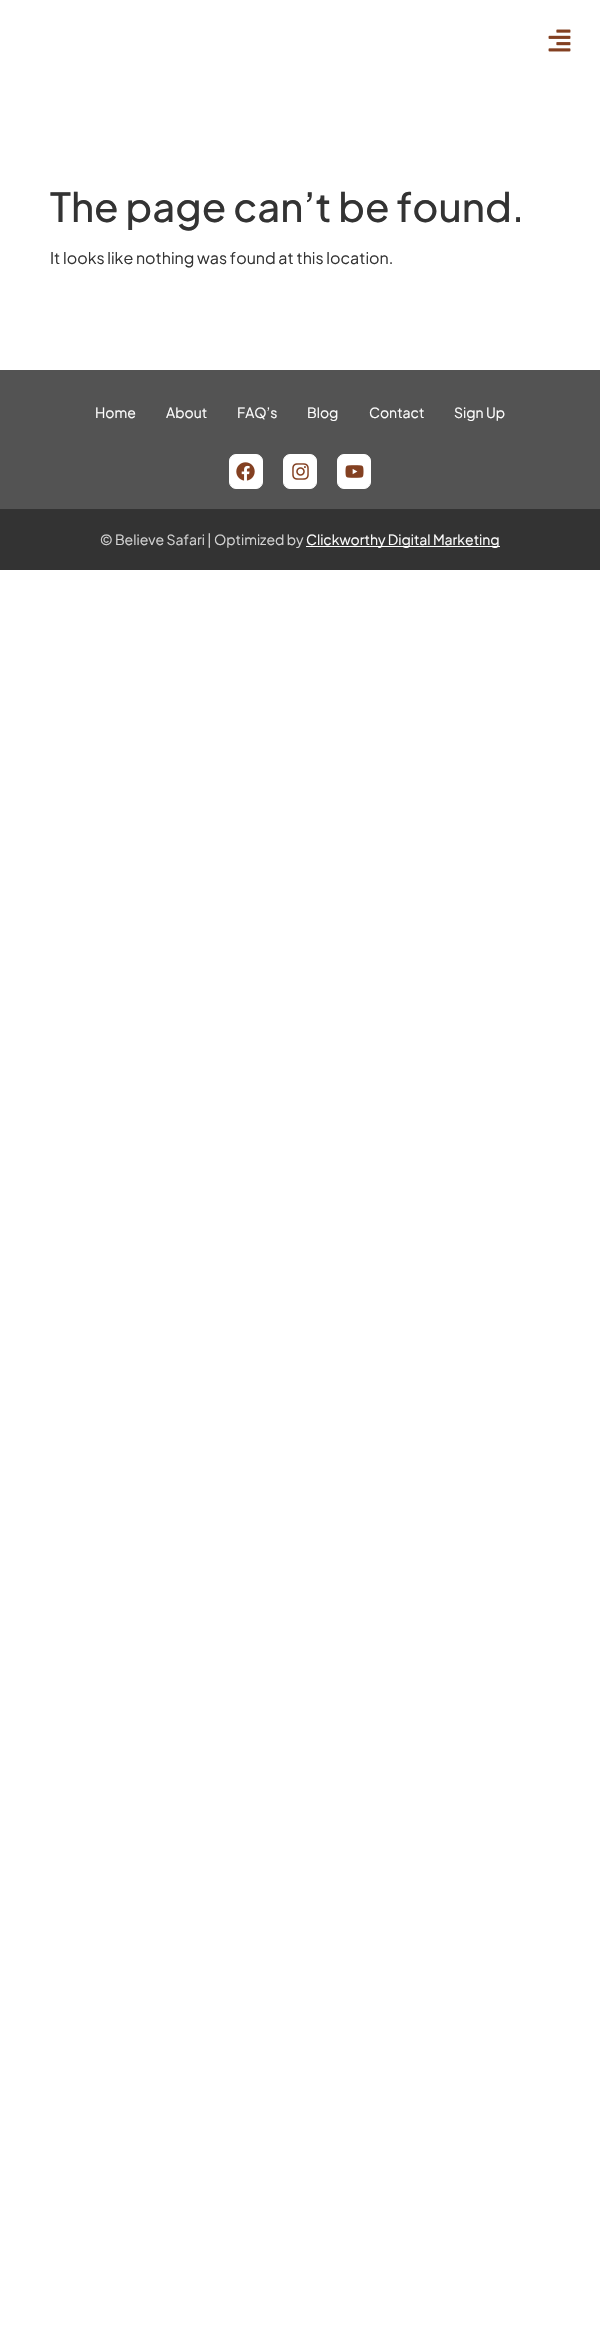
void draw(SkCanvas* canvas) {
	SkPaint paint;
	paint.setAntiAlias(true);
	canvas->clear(0xffffffff);
	canvas->drawImageRect(SkImages::DeferredFromEncodedData(SkData::MakeFromFileName("img1.png")), SkRect::MakeXYWH(548, 29, 23, 23), SkSamplingOptions());
	SkFont f1(fontMgr->matchFamilyStyle("Plus Jakarta Sans", SkFontStyle(500, SkFontStyle::kNormal_Width, SkFontStyle::kUpright_Slant)), 40);
	f1.setSubpixel(true);
	paint.setColor(0xff333333);
	canvas->drawString("The page can’t be found.", 50, 222, f1, paint);
	SkFont f2(fontMgr->matchFamilyStyle("Plus Jakarta Sans", SkFontStyle::Normal()), 16);
	f2.setSubpixel(true);
	canvas->drawString("It looks like nothing was found at this location.", 50, 264, f2, paint);
	paint.setColor(0xff535353);
	canvas->drawRect(SkRect::MakeXYWH(0, 370, 600, 139), paint);
	SkFont f3(fontMgr->matchFamilyStyle("Plus Jakarta Sans", SkFontStyle::Normal()), 14);
	f3.setSubpixel(true);
	paint.setColor(0xffffffff);
	canvas->drawString("Home", 95, 418, f3, paint);
	canvas->drawString("About", 166, 418, f3, paint);
	canvas->drawString("FAQ’s", 237, 418, f3, paint);
	canvas->drawString("Blog", 307, 418, f3, paint);
	canvas->drawString("Contact", 369, 418, f3, paint);
	canvas->drawString("Sign Up", 454, 418, f3, paint);
	canvas->drawRoundRect(SkRect::MakeXYWH(229.5, 454.5, 33, 34), 6.5, 6.5, paint);
	paint.setStroke(true);
	paint.setStrokeWidth(1);
	canvas->drawRoundRect(SkRect::MakeXYWH(229.5, 454.5, 33, 34), 6.5, 6.5, paint);
	canvas->drawImageRect(SkImages::DeferredFromEncodedData(SkData::MakeFromFileName("img2.png")), SkRect::MakeXYWH(236, 462, 19, 19), SkSamplingOptions());
	paint.setStroke(false);
	canvas->drawRoundRect(SkRect::MakeXYWH(283.5, 454.5, 33, 34), 6.5, 6.5, paint);
	paint.setStroke(true);
	canvas->drawRoundRect(SkRect::MakeXYWH(283.5, 454.5, 33, 34), 6.5, 6.5, paint);
	canvas->drawImageRect(SkImages::DeferredFromEncodedData(SkData::MakeFromFileName("img3.png")), SkRect::MakeXYWH(292, 463, 17, 17), SkSamplingOptions());
	paint.setStroke(false);
	canvas->drawRoundRect(SkRect::MakeXYWH(337.5, 454.5, 33, 34), 6.5, 6.5, paint);
	paint.setStroke(true);
	canvas->drawRoundRect(SkRect::MakeXYWH(337.5, 454.5, 33, 34), 6.5, 6.5, paint);
	canvas->drawImageRect(SkImages::DeferredFromEncodedData(SkData::MakeFromFileName("img4.png")), SkRect::MakeXYWH(345, 465, 19, 13), SkSamplingOptions());
	paint.setStroke(false);
	paint.setColor(0xff333333);
	canvas->drawRect(SkRect::MakeXYWH(0, 509, 600, 61), paint);
	paint.setColor(0xffd3d3d3);
	canvas->drawString("© Believe Safari | Optimized by", 100, 545, f3, paint);
	paint.setColor(0xffffffff);
	canvas->drawRect(SkRect::MakeXYWH(306, 546, 194, 1), paint);
	canvas->drawString("Clickworthy Digital Marketing", 306, 545, f3, paint);
}
